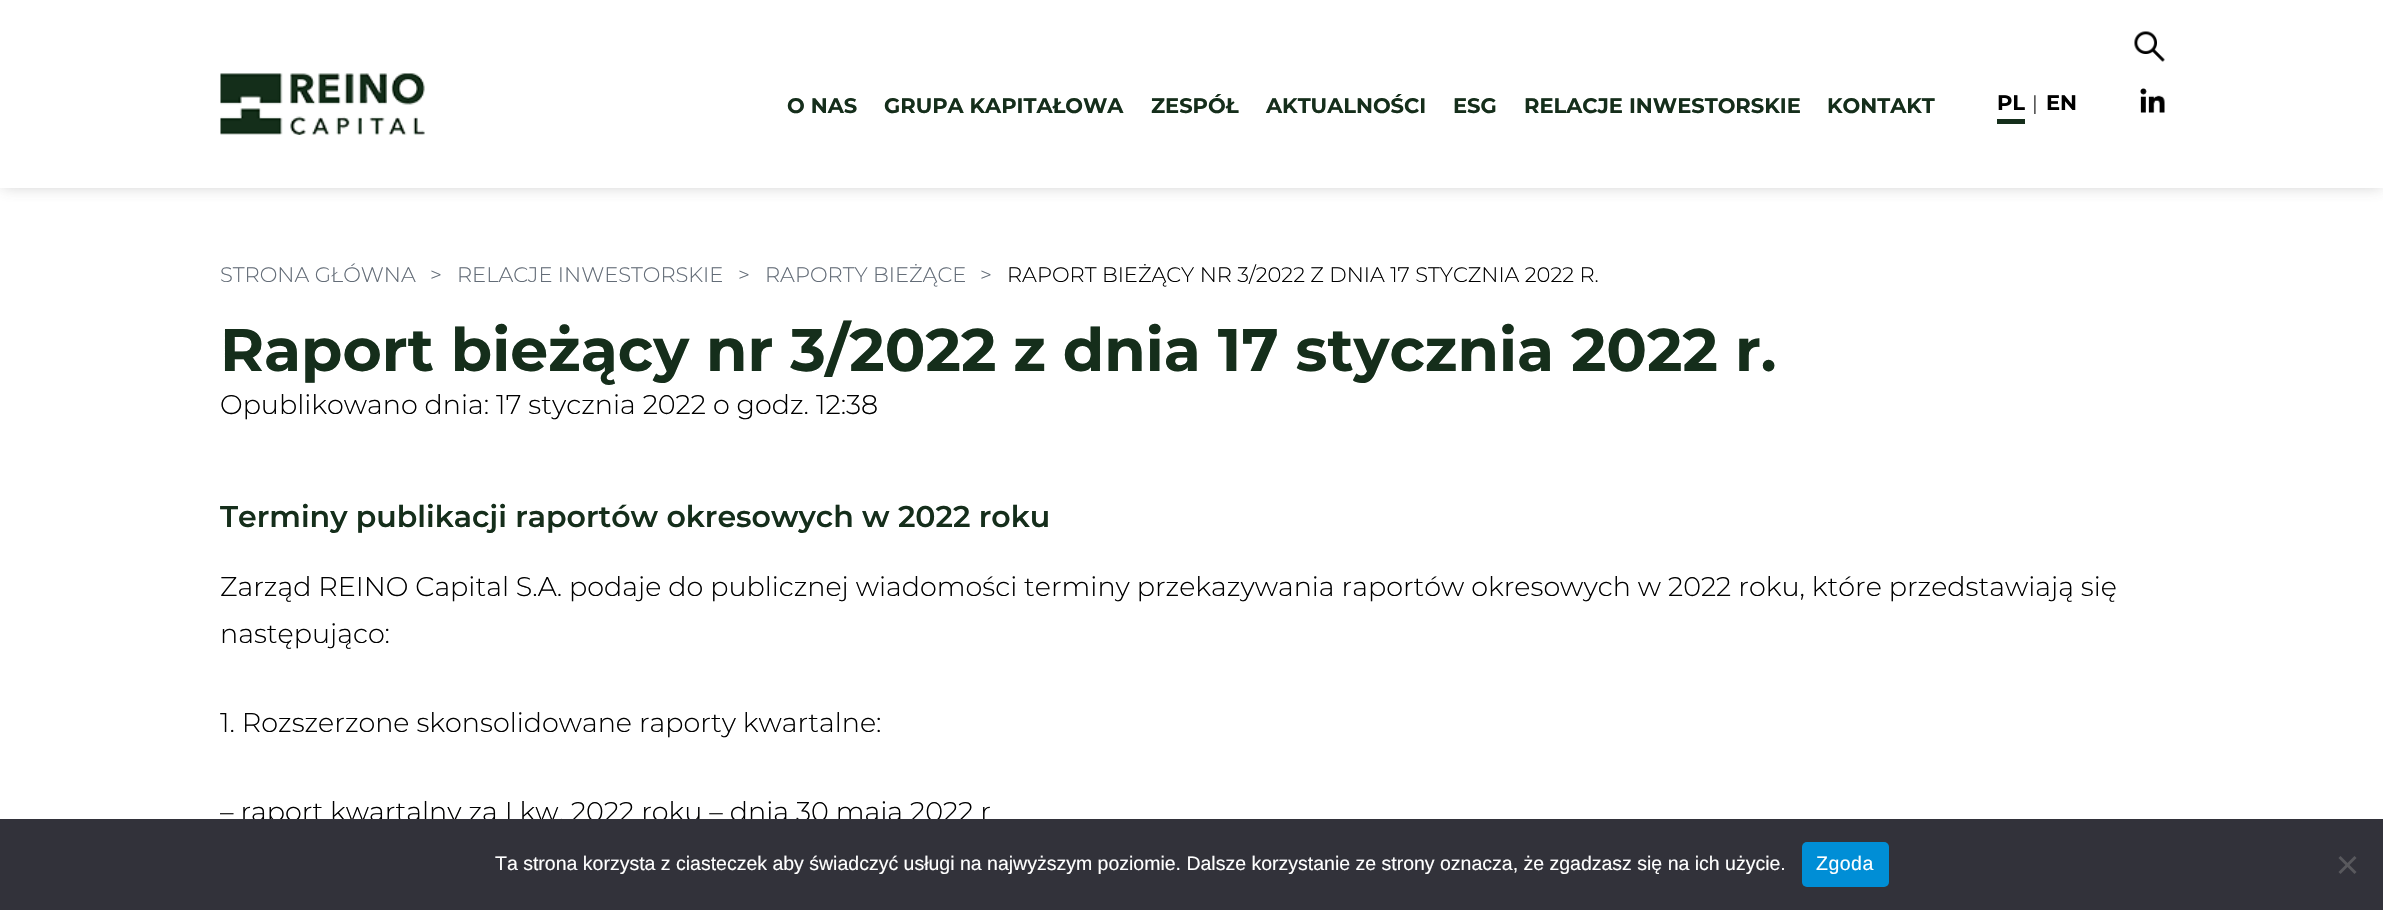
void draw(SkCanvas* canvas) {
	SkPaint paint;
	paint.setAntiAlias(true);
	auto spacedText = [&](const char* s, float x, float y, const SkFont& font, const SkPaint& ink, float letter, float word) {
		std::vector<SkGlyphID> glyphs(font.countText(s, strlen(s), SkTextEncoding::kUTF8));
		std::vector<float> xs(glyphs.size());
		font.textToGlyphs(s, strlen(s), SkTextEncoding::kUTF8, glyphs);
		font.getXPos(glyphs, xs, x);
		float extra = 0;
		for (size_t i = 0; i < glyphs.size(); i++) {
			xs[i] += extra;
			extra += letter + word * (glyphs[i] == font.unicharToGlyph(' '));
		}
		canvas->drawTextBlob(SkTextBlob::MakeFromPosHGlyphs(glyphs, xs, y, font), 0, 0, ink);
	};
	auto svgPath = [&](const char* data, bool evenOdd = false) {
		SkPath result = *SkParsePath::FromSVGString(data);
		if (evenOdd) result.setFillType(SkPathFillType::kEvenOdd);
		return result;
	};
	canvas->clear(0xffffffff);
	canvas->save();
	canvas->clipPath(svgPath("M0 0H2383V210H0ZM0 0H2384V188H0Z", true), true);
	paint.setColor(0x4d4b4b4b);
	paint.setMaskFilter(SkMaskFilter::MakeBlur(kNormal_SkBlurStyle, 7.5));
	canvas->drawRect(SkRect::MakeXYWH(2, 2, 2380, 184), paint);
	paint.setMaskFilter(nullptr);
	canvas->restore();
	canvas->drawImageRect(SkImages::DeferredFromEncodedData(SkData::MakeFromFileName("img1.png")), SkRect::MakeXYWH(220, 73, 205, 62), SkSamplingOptions());
	canvas->drawImageRect(SkImages::DeferredFromEncodedData(SkData::MakeFromFileName("img2.png")), SkRect::MakeXYWH(2134, 31, 31, 31), SkSamplingOptions());
	SkFont f1(fontMgr->matchFamilyStyle("Montserrat", SkFontStyle::Bold()), 21);
	f1.setSubpixel(true);
	paint.setColor(0xff152e1b);
	canvas->drawString("O NAS", 787, 113, f1, paint);
	canvas->drawString("GRUPA KAPITAŁOWA", 884, 113, f1, paint);
	canvas->drawString("ZESPÓŁ", 1151, 113, f1, paint);
	canvas->drawString("AKTUALNOŚCI", 1266, 113, f1, paint);
	canvas->drawString("ESG", 1453, 113, f1, paint);
	canvas->drawString("RELACJE INWESTORSKIE", 1524, 113, f1, paint);
	canvas->drawString("KONTAKT", 1827, 113, f1, paint);
	canvas->drawRect(SkRect::MakeXYWH(1997, 119, 28, 5), paint);
	paint.setColor(0xff000000);
	canvas->drawString("PL", 1997, 110, f1, paint);
	SkFont f2(fontMgr->matchFamilyStyle("Montserrat", SkFontStyle(300, SkFontStyle::kNormal_Width, SkFontStyle::kUpright_Slant)), 20);
	f2.setSubpixel(true);
	canvas->drawString("|", 2032, 110, f2, paint);
	canvas->drawString("EN", 2046, 110, f1, paint);
	canvas->drawImageRect(SkImages::DeferredFromEncodedData(SkData::MakeFromFileName("img3.png")), SkRect::MakeXYWH(2140, 88, 25, 25), SkSamplingOptions());
	SkFont f3(fontMgr->matchFamilyStyle("Montserrat", SkFontStyle(300, SkFontStyle::kNormal_Width, SkFontStyle::kUpright_Slant)), 21);
	f3.setSubpixel(true);
	paint.setColor(0xff636c77);
	canvas->drawString("STRONA GŁÓWNA", 220, 282, f3, paint);
	canvas->drawString(">", 430, 282, f3, paint);
	canvas->drawString("RELACJE INWESTORSKIE", 457, 282, f3, paint);
	canvas->drawString(">", 738, 282, f3, paint);
	canvas->drawString("RAPORTY BIEŻĄCE", 765, 282, f3, paint);
	canvas->drawString(">", 980, 282, f3, paint);
	paint.setColor(0xff000000);
	canvas->drawString("RAPORT BIEŻĄCY NR 3/2022 Z DNIA 17 STYCZNIA 2022 R.", 1007, 282, f3, paint);
	SkFont f4(fontMgr->matchFamilyStyle("Montserrat", SkFontStyle::Bold()), 60);
	f4.setSubpixel(true);
	paint.setColor(0xff152e1b);
	canvas->drawString("Raport bieżący nr 3/2022 z dnia 17 stycznia 2022 r.", 220, 371, f4, paint);
	SkFont f5(fontMgr->matchFamilyStyle("Montserrat", SkFontStyle(300, SkFontStyle::kNormal_Width, SkFontStyle::kUpright_Slant)), 27);
	f5.setSubpixel(true);
	paint.setColor(0xff000000);
	canvas->drawString("Opublikowano dnia: 17 stycznia 2022 o godz. 12:38", 220, 414, f5, paint);
	SkFont f6(fontMgr->matchFamilyStyle("Montserrat", SkFontStyle(600, SkFontStyle::kNormal_Width, SkFontStyle::kUpright_Slant)), 30);
	f6.setSubpixel(true);
	paint.setColor(0xff152e1b);
	canvas->drawString("Terminy publikacji raportów okresowych w 2022 roku", 220, 527, f6, paint);
	paint.setColor(0xff000000);
	canvas->drawString("Zarząd REINO Capital S.A. podaje do publicznej wiadomości terminy przekazywania raportów okresowych w 2022 roku, które przedstawiają się", 220, 596, f5, paint);
	canvas->drawString("następująco:", 220, 643, f5, paint);
	canvas->drawString("1. Rozszerzone skonsolidowane raporty kwartalne:", 220, 732, f5, paint);
	canvas->drawString("– raport kwartalny za I kw. 2022 roku – dnia 30 maja 2022 r", 220, 821, f5, paint);
	paint.setColor(0xff32323a);
	canvas->drawRect(SkRect::MakeXYWH(0, 819, 2383, 91), paint);
	SkFont f7(fontMgr->matchFamilyStyle("Liberation Sans", SkFontStyle::Normal()), 19.5);
	f7.setSubpixel(true);
	paint.setColor(0xffffffff);
	canvas->drawString("Ta strona korzysta z ciasteczek aby świadczyć usługi na najwyższym poziomie. Dalsze korzystanie ze strony oznacza, że zgadzasz się na ich użycie.", 495, 870, f7, paint);
	paint.setColor(0xff008ed6);
	canvas->drawRoundRect(SkRect::MakeXYWH(1802, 842, 87, 45), 5, 5, paint);
	paint.setColor(0xffffffff);
	spacedText("Zgoda", 1816, 870, f7, paint, 0.5, 0);
	paint.setColor(0xff59595d);
	canvas->drawPath(svgPath("M2354.5 856L2356.5 858L2340.5 874L2338.5 872Z"), paint);
	canvas->drawPath(svgPath("M2338.5 858L2340.5 856L2356.5 872L2354.5 874Z"), paint);
}
